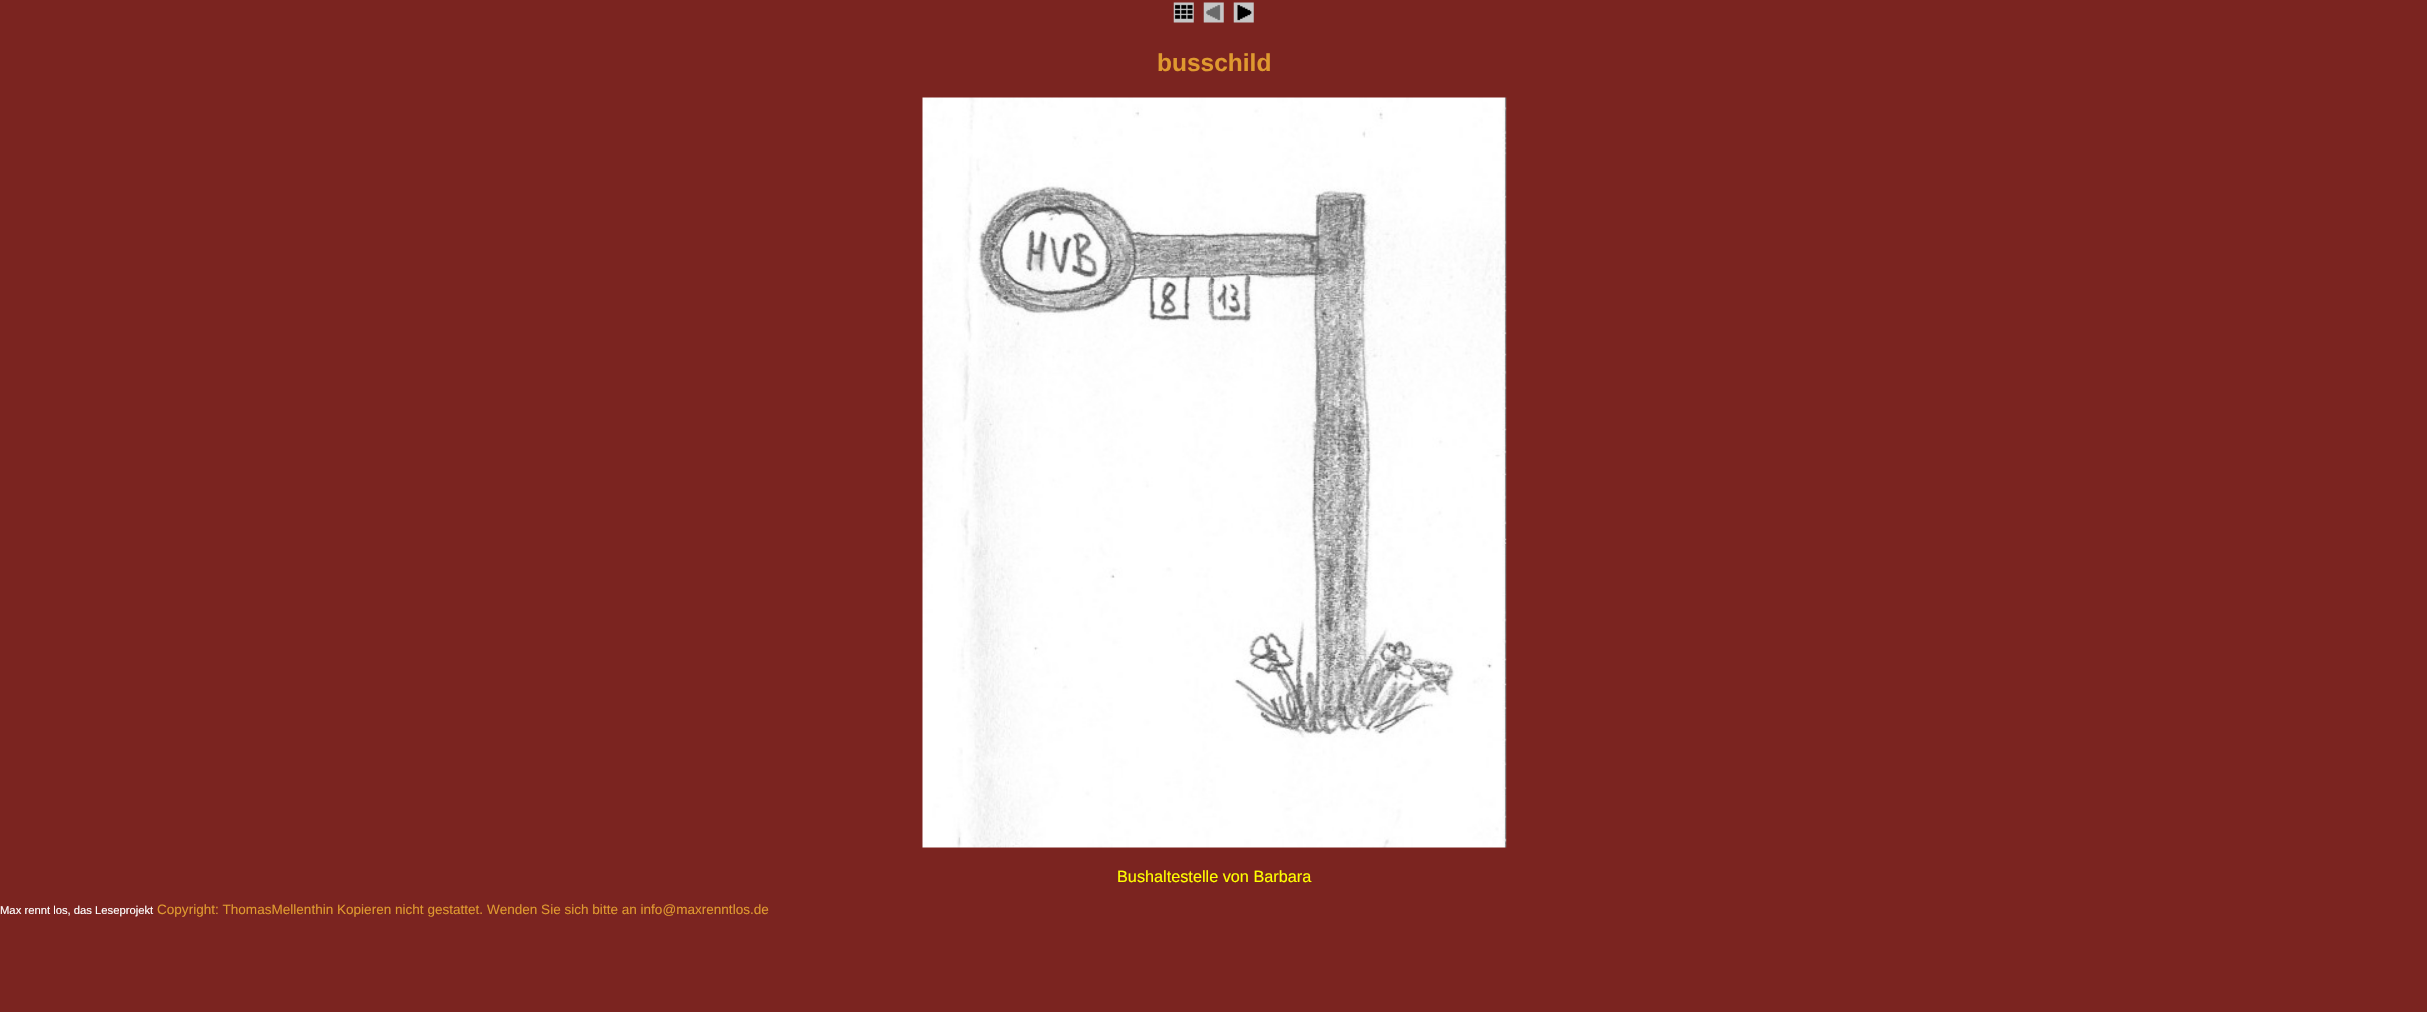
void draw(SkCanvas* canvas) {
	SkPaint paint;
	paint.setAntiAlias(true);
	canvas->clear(0xff7b2420);
	canvas->drawImageRect(SkImages::DeferredFromEncodedData(SkData::MakeFromFileName("img1.png")), SkRect::MakeXYWH(1173, 2, 21, 21), SkSamplingOptions());
	canvas->drawImageRect(SkImages::DeferredFromEncodedData(SkData::MakeFromFileName("img2.png")), SkRect::MakeXYWH(1203, 2, 21, 21), SkSamplingOptions());
	canvas->drawImageRect(SkImages::DeferredFromEncodedData(SkData::MakeFromFileName("img3.png")), SkRect::MakeXYWH(1233, 2, 21, 21), SkSamplingOptions());
	SkFont f1(fontMgr->matchFamilyStyle("Liberation Sans", SkFontStyle::Bold()), 24.5);
	f1.setSubpixel(true);
	paint.setColor(0xffdf992f);
	canvas->drawString("busschild", 1157, 71, f1, paint);
	canvas->drawImageRect(SkImages::DeferredFromEncodedData(SkData::MakeFromFileName("img4.png")), SkRect::MakeXYWH(922, 97, 585, 751), SkSamplingOptions());
	SkFont f2(fontMgr->matchFamilyStyle("Liberation Sans", SkFontStyle::Normal()), 16.25);
	f2.setSubpixel(true);
	paint.setColor(0xffffff00);
	canvas->drawString("Bushaltestelle von Barbara", 1117, 882, f2, paint);
	SkFont f3(fontMgr->matchFamilyStyle("Liberation Sans", SkFontStyle::Normal()), 11.25);
	f3.setSubpixel(true);
	paint.setColor(0xffffffff);
	canvas->drawString("Max rennt los, das Leseprojekt", 0, 914, f3, paint);
	SkFont f4(fontMgr->matchFamilyStyle("Liberation Sans", SkFontStyle::Normal()), 13.55);
	f4.setSubpixel(true);
	paint.setColor(0xffdf992f);
	canvas->drawString("Copyright: ThomasMellenthin Kopieren nicht gestattet. Wenden Sie sich bitte an info@maxrenntlos.de", 157, 914, f4, paint);
}
